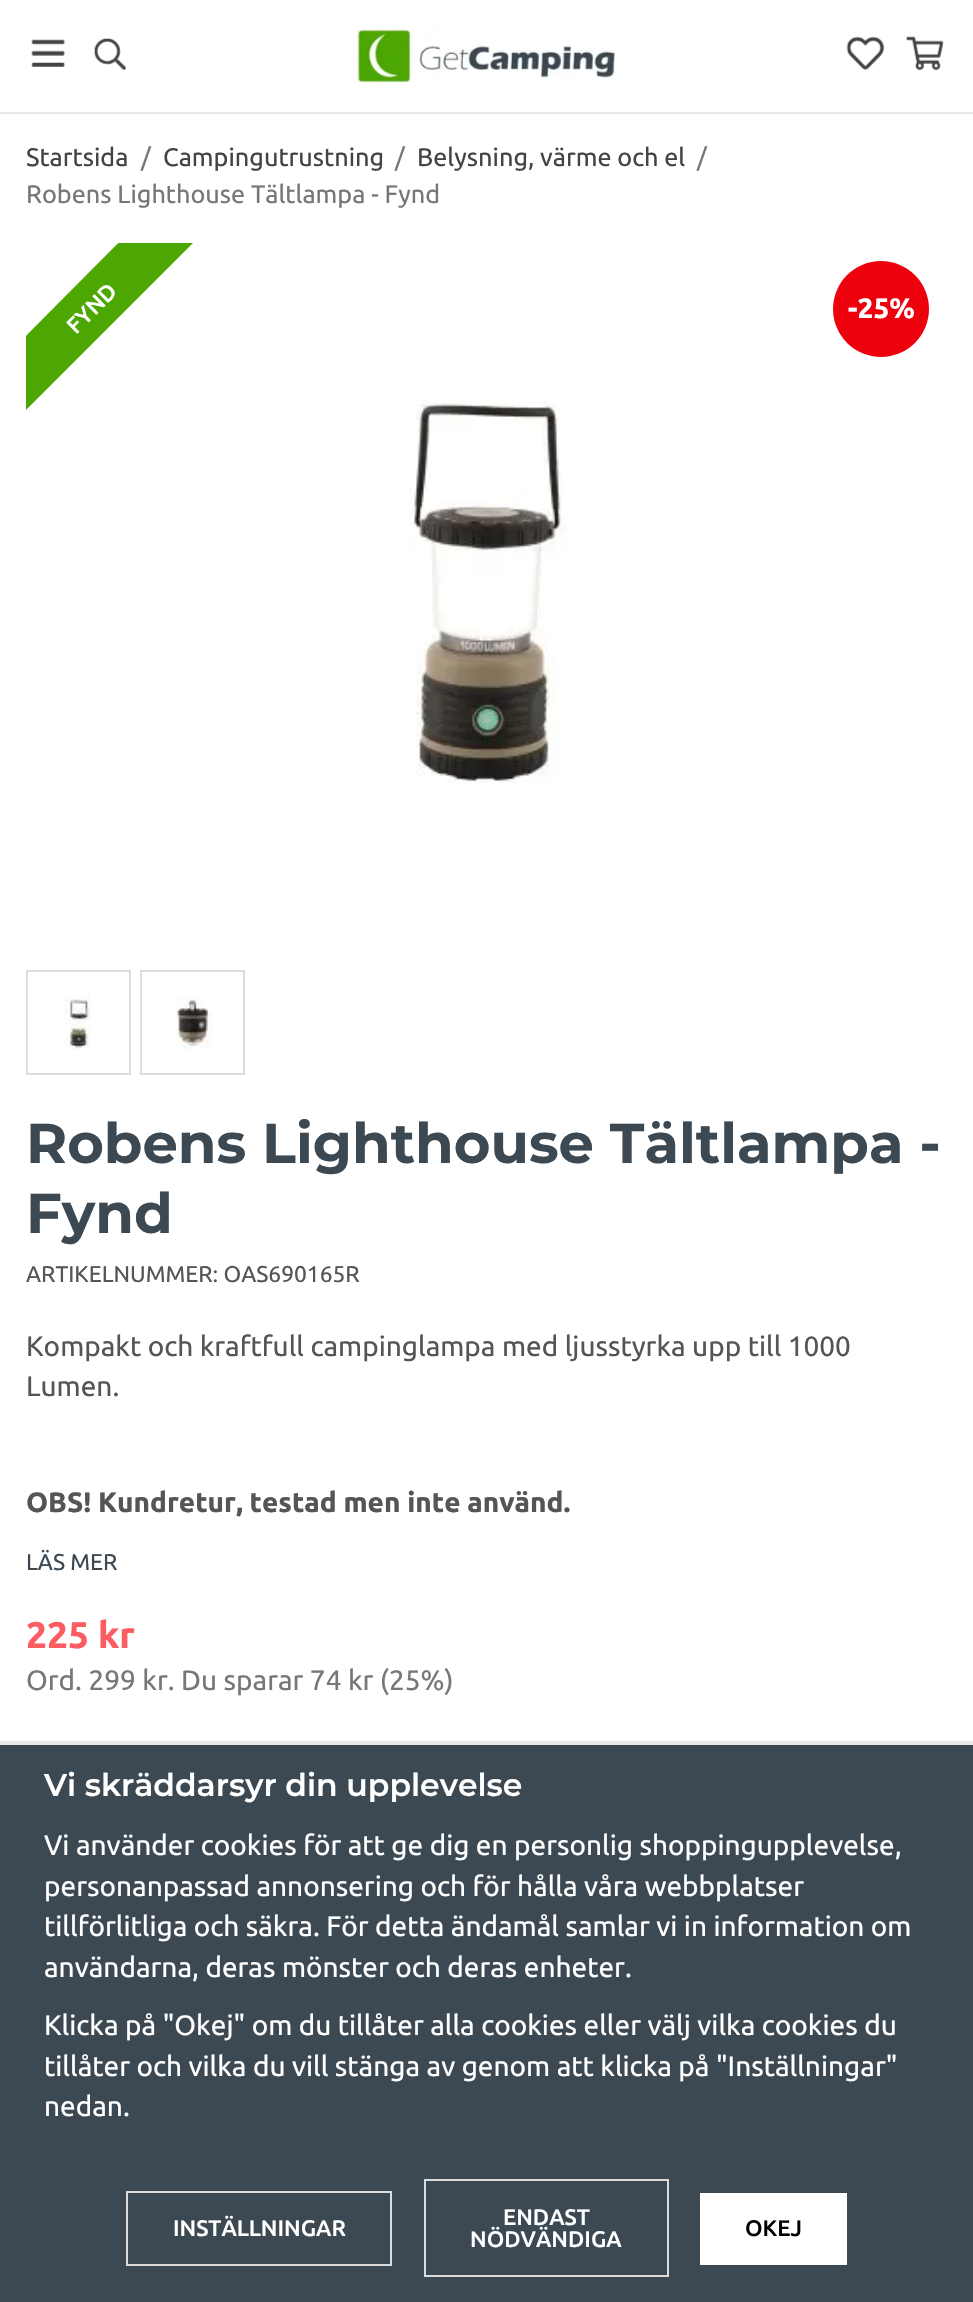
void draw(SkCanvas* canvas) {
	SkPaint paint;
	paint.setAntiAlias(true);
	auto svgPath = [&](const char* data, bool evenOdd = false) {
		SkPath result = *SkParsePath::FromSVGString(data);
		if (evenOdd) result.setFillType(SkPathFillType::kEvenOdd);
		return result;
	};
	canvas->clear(0xffffffff);
	paint.setColor(0xffe9e9e9);
	canvas->drawRect(SkRect::MakeXYWH(0, 112, 973, 2), paint);
	canvas->drawImageRect(SkImages::DeferredFromEncodedData(SkData::MakeFromFileName("img1.png")), SkRect::MakeXYWH(31, 39, 34, 28), SkSamplingOptions());
	canvas->drawImageRect(SkImages::DeferredFromEncodedData(SkData::MakeFromFileName("img2.png")), SkRect::MakeXYWH(94, 38, 32, 32), SkSamplingOptions());
	canvas->drawImageRect(SkImages::DeferredFromEncodedData(SkData::MakeFromFileName("img3.png")), SkRect::MakeXYWH(356, 25, 261, 59), SkSamplingOptions());
	canvas->drawImageRect(SkImages::DeferredFromEncodedData(SkData::MakeFromFileName("img4.png")), SkRect::MakeXYWH(846, 36, 38, 34), SkSamplingOptions());
	canvas->drawImageRect(SkImages::DeferredFromEncodedData(SkData::MakeFromFileName("img5.png")), SkRect::MakeXYWH(906, 36, 38, 34), SkSamplingOptions());
	SkFont f1(fontMgr->matchFamilyStyle("Ubuntu", SkFontStyle::Normal()), 25.25);
	f1.setSubpixel(true);
	paint.setColor(0xff444444);
	canvas->drawString("Startsida", 26, 166, f1, paint);
	paint.setColor(0xff777777);
	canvas->drawString("/", 141, 166, f1, paint);
	paint.setColor(0xff444444);
	canvas->drawString("Campingutrustning", 163, 166, f1, paint);
	paint.setColor(0xff777777);
	canvas->drawString("/", 395, 166, f1, paint);
	paint.setColor(0xff444444);
	canvas->drawString("Belysning, värme och el", 417, 166, f1, paint);
	paint.setColor(0xff777777);
	canvas->drawString("/", 697, 166, f1, paint);
	canvas->drawString("Robens Lighthouse Tältlampa - Fynd", 26, 203, f1, paint);
	canvas->save();
	canvas->clipRect(SkRect::MakeXYWH(26, 243, 921, 867));
	paint.setColor(0xff4ca702);
	canvas->drawPath(svgPath("M-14 376L159 202L196 240L23 413Z"), paint);
	canvas->restore();
	SkFont f2(fontMgr->matchFamilyStyle("Ubuntu", SkFontStyle(500, SkFontStyle::kNormal_Width, SkFontStyle::kUpright_Slant)), 22.75);
	f2.setSubpixel(true);
	paint.setColor(0xffffffff);
	canvas->save();
	canvas->rotate(-45, 76, 335);
	canvas->drawString("FYND", 76, 335, f2, paint);
	canvas->restore();
	paint.setColor(0xffed010c);
	canvas->drawCircle(881, 309, 48, paint);
	SkFont f3(fontMgr->matchFamilyStyle("Ubuntu", SkFontStyle::Bold()), 28);
	f3.setSubpixel(true);
	paint.setColor(0xffffffff);
	canvas->drawString("-25%", 848, 318, f3, paint);
	canvas->drawImageRect(SkImages::DeferredFromEncodedData(SkData::MakeFromFileName("img6.png")), SkRect::MakeXYWH(409, 400, 158, 383), SkSamplingOptions());
	paint.setStroke(true);
	paint.setStrokeWidth(2);
	paint.setColor(0xffdcdcdc);
	canvas->drawRect(SkRect::MakeXYWH(27, 971, 103, 103), paint);
	canvas->drawImageRect(SkImages::DeferredFromEncodedData(SkData::MakeFromFileName("img7.png")), SkRect::MakeXYWH(64, 995, 27, 55), SkSamplingOptions());
	canvas->drawRect(SkRect::MakeXYWH(141, 971, 103, 103), paint);
	canvas->drawImageRect(SkImages::DeferredFromEncodedData(SkData::MakeFromFileName("img8.png")), SkRect::MakeXYWH(172, 996, 42, 53), SkSamplingOptions());
	SkFont f4(fontMgr->matchFamilyStyle("Montserrat", SkFontStyle::Bold()), 56);
	f4.setSubpixel(true);
	paint.setStroke(false);
	paint.setColor(0xff3d4952);
	canvas->drawString("Robens Lighthouse Tältlampa -", 26, 1163, f4, paint);
	canvas->drawString("Fynd", 26, 1233, f4, paint);
	SkFont f5(fontMgr->matchFamilyStyle("Ubuntu", SkFontStyle::Normal()), 22.75);
	f5.setSubpixel(true);
	paint.setColor(0xff555555);
	canvas->drawString("ARTIKELNUMMER: OAS690165R", 26, 1282, f5, paint);
	SkFont f6(fontMgr->matchFamilyStyle("Ubuntu", SkFontStyle::Normal()), 28);
	f6.setSubpixel(true);
	canvas->drawString("Kompakt och kraftfull campinglampa med ljusstyrka upp till 1000", 26, 1356, f6, paint);
	canvas->drawString("Lumen.", 26, 1396, f6, paint);
	canvas->drawString("OBS! Kundretur, testad men inte använd.", 26, 1512, f3, paint);
	paint.setColor(0xff3d4952);
	canvas->drawString("LÄS MER", 26, 1570, f5, paint);
	SkFont f7(fontMgr->matchFamilyStyle("Ubuntu", SkFontStyle::Bold()), 37);
	f7.setSubpixel(true);
	paint.setColor(0xfffc5d62);
	canvas->drawString("225 kr", 26, 1648, f7, paint);
	paint.setColor(0xff777777);
	canvas->drawString("Ord. 299 kr. Du sparar 74 kr (25%)", 26, 1690, f6, paint);
	paint.setColor(0xff3c4952);
	canvas->drawRect(SkRect::MakeXYWH(0, 1745, 973, 557), paint);
	paint.setColor(0xffe9e9e9);
	canvas->drawRect(SkRect::MakeXYWH(0, 1741, 973, 4), paint);
	SkFont f8(fontMgr->matchFamilyStyle("Montserrat", SkFontStyle(600, SkFontStyle::kNormal_Width, SkFontStyle::kUpright_Slant)), 31.5);
	f8.setSubpixel(true);
	paint.setColor(0xffffffff);
	canvas->drawString("Vi skräddarsyr din upplevelse", 44, 1796, f8, paint);
	canvas->drawString("Vi använder cookies för att ge dig en personlig shoppingupplevelse,", 44, 1855, f6, paint);
	canvas->drawString("personanpassad annonsering och för hålla våra webbplatser", 44, 1896, f6, paint);
	canvas->drawString("tillförlitliga och säkra. För detta ändamål samlar vi in information om", 44, 1936, f6, paint);
	canvas->drawString("användarna, deras mönster och deras enheter.", 44, 1977, f6, paint);
	canvas->drawString("Klicka på \"Okej\" om du tillåter alla cookies eller välj vilka cookies du", 44, 2035, f6, paint);
	canvas->drawString("tillåter och vilka du vill stänga av genom att klicka på \"Inställningar\"", 44, 2076, f6, paint);
	canvas->drawString("nedan.", 44, 2116, f6, paint);
	paint.setStroke(true);
	paint.setColor(0xffdcdcdc);
	canvas->drawRect(SkRect::MakeXYWH(127, 2192, 264, 73), paint);
	SkFont f9(fontMgr->matchFamilyStyle("Ubuntu", SkFontStyle(500, SkFontStyle::kNormal_Width, SkFontStyle::kUpright_Slant)), 22.5);
	f9.setSubpixel(true);
	paint.setStroke(false);
	paint.setColor(0xffffffff);
	canvas->drawString("INSTÄLLNINGAR", 173, 2236, f9, paint);
	paint.setStroke(true);
	paint.setColor(0xffdcdcdc);
	canvas->drawRect(SkRect::MakeXYWH(425, 2180, 243, 96), paint);
	paint.setStroke(false);
	paint.setColor(0xffffffff);
	canvas->drawString("ENDAST", 503, 2225, f9, paint);
	canvas->drawString("NÖDVÄNDIGA", 470, 2247, f9, paint);
	canvas->drawRect(SkRect::MakeXYWH(700, 2193, 147, 72), paint);
	paint.setColor(0xff000000);
	canvas->drawString("OKEJ", 745, 2236, f9, paint);
}
